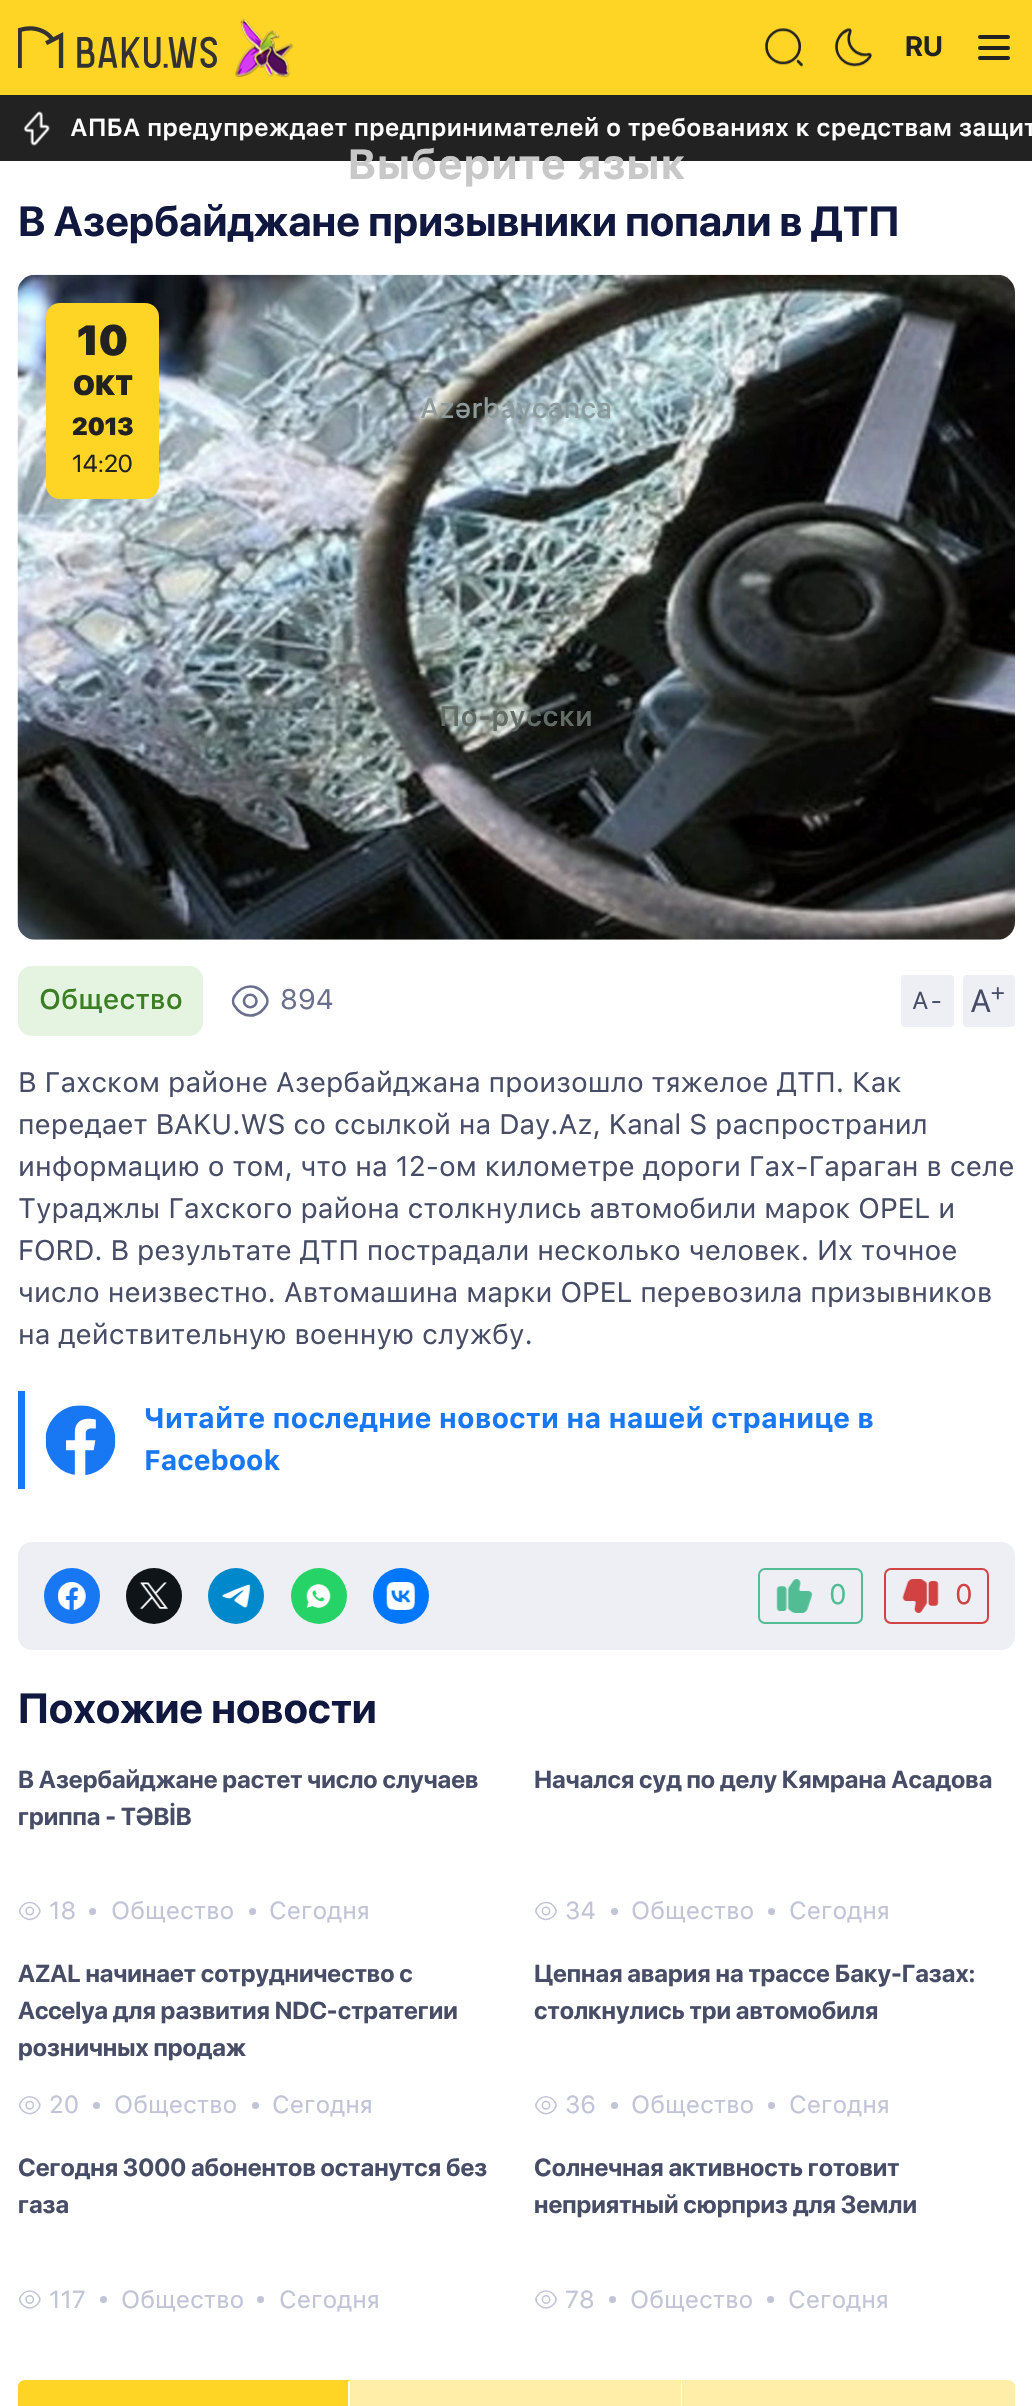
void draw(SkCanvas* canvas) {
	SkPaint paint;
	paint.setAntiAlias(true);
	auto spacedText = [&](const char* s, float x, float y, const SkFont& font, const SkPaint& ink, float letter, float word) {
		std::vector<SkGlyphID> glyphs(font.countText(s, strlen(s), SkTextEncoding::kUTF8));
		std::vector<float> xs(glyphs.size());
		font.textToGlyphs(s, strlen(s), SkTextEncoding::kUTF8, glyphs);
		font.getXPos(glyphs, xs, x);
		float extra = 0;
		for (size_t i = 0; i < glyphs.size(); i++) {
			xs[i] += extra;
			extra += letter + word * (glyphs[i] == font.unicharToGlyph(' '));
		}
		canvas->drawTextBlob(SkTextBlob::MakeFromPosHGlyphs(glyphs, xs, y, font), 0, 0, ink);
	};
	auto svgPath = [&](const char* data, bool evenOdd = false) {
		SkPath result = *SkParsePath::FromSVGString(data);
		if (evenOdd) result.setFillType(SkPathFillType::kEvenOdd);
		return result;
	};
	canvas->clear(0xffffffff);
	paint.setColor(0xffffd525);
	canvas->drawRect(SkRect::MakeXYWH(0, 0, 1032, 95), paint);
	canvas->drawImageRect(SkImages::DeferredFromEncodedData(SkData::MakeFromFileName("img1.png")), SkRect::MakeXYWH(18, 26, 199, 42), SkSamplingOptions());
	canvas->drawImageRect(SkImages::DeferredFromEncodedData(SkData::MakeFromFileName("img2.png")), SkRect::MakeXYWH(235, 18, 59, 60), SkSamplingOptions());
	canvas->drawImageRect(SkImages::DeferredFromEncodedData(SkData::MakeFromFileName("img3.png")), SkRect::MakeXYWH(765, 28, 38, 39), SkSamplingOptions());
	canvas->drawImageRect(SkImages::DeferredFromEncodedData(SkData::MakeFromFileName("img4.png")), SkRect::MakeXYWH(835, 28, 37, 39), SkSamplingOptions());
	paint.setColor(0xff222222);
	canvas->drawRoundRect(SkRect::MakeXYWH(978, 35, 32, 4), 2, 2, paint);
	canvas->drawRoundRect(SkRect::MakeXYWH(978, 46, 32, 4), 2, 2, paint);
	canvas->drawRoundRect(SkRect::MakeXYWH(978, 56, 32, 4), 2, 2, paint);
	SkFont f1(fontMgr->matchFamilyStyle("SF Pro Display", SkFontStyle::Bold()), 28);
	f1.setSubpixel(true);
	canvas->drawString("RU", 905, 56, f1, paint);
	canvas->drawRect(SkRect::MakeXYWH(0, 95, 1032, 66), paint);
	SkFont f2(fontMgr->matchFamilyStyle("SF Pro Text", SkFontStyle::Bold()), 42);
	f2.setSubpixel(true);
	paint.setColor(0xffc8c8c8);
	canvas->drawString("Выберите язык", 347, 179, f2, paint);
	canvas->drawImageRect(SkImages::DeferredFromEncodedData(SkData::MakeFromFileName("img6.png")), SkRect::MakeXYWH(17, 274, 998, 666), SkSamplingOptions());
	SkFont f3(fontMgr->matchFamilyStyle("SF Pro Text", SkFontStyle(500, SkFontStyle::kNormal_Width, SkFontStyle::kUpright_Slant)), 28);
	f3.setSubpixel(true);
	paint.setColor(0xff8c9a9c);
	canvas->drawString("Azərbaycanca", 420, 418, f3, paint);
	SkFont f4(fontMgr->matchFamilyStyle("SF Pro Text", SkFontStyle(600, SkFontStyle::kNormal_Width, SkFontStyle::kUpright_Slant)), 28);
	f4.setSubpixel(true);
	paint.setColor(0xff636b67);
	canvas->drawString("По-русски", 439, 726, f4, paint);
	canvas->drawImageRect(SkImages::DeferredFromEncodedData(SkData::MakeFromFileName("img5.png")), SkRect::MakeXYWH(23, 111, 27, 35), SkSamplingOptions());
	SkFont f5(fontMgr->matchFamilyStyle("SF Pro Text", SkFontStyle(600, SkFontStyle::kNormal_Width, SkFontStyle::kUpright_Slant)), 24.5);
	f5.setSubpixel(true);
	paint.setColor(0xffffffff);
	canvas->drawString("АПБА предупреждает предпринимателей о требованиях к средствам защит", 70, 136, f5, paint);
	SkFont f6(fontMgr->matchFamilyStyle("SF Pro Display", SkFontStyle::Bold()), 42);
	f6.setSubpixel(true);
	paint.setColor(0xff101840);
	canvas->drawString("В Азербайджане призывники попали в ДТП", 18, 236, f6, paint);
	paint.setColor(0xffffd525);
	canvas->drawRoundRect(SkRect::MakeXYWH(46, 303, 113, 196), 14, 14, paint);
	SkFont f7(fontMgr->matchFamilyStyle("SF Pro Display", SkFontStyle(900, SkFontStyle::kNormal_Width, SkFontStyle::kUpright_Slant)), 42);
	f7.setSubpixel(true);
	paint.setColor(0xff222222);
	canvas->drawString("10", 77, 355, f7, paint);
	SkFont f8(fontMgr->matchFamilyStyle("SF Pro Display", SkFontStyle(900, SkFontStyle::kNormal_Width, SkFontStyle::kUpright_Slant)), 28);
	f8.setSubpixel(true);
	canvas->drawString("ОКТ", 73, 395, f8, paint);
	SkFont f9(fontMgr->matchFamilyStyle("SF Pro Display", SkFontStyle(900, SkFontStyle::kNormal_Width, SkFontStyle::kUpright_Slant)), 24.5);
	f9.setSubpixel(true);
	canvas->drawString("2013", 72, 435, f9, paint);
	SkFont f10(fontMgr->matchFamilyStyle("SF Pro Display", SkFontStyle::Normal()), 24.5);
	f10.setSubpixel(true);
	canvas->drawString("14:20", 72, 472, f10, paint);
	paint.setColor(0xffe5f4e0);
	canvas->drawRoundRect(SkRect::MakeXYWH(18, 966, 185, 70), 14, 14, paint);
	paint.setColor(0xff3b7e24);
	canvas->drawString("Общество", 39, 1009, f3, paint);
	canvas->drawImageRect(SkImages::DeferredFromEncodedData(SkData::MakeFromFileName("img7.png")), SkRect::MakeXYWH(231, 985, 38, 32), SkSamplingOptions());
	SkFont f11(fontMgr->matchFamilyStyle("SF Pro Text", SkFontStyle::Normal()), 28);
	f11.setSubpixel(true);
	paint.setColor(0xff696f8c);
	canvas->drawString("894", 280, 1009, f11, paint);
	paint.setColor(0xffedeff5);
	canvas->drawRoundRect(SkRect::MakeXYWH(901, 975, 53, 52), 4, 4, paint);
	SkFont f12(fontMgr->matchFamilyStyle("SF Pro Text", SkFontStyle::Normal()), 24.5);
	f12.setSubpixel(true);
	paint.setColor(0xff474d66);
	spacedText("A-", 912, 1009, f12, paint, 2, 0);
	paint.setColor(0xffedeff5);
	canvas->drawRoundRect(SkRect::MakeXYWH(963, 975, 52, 52), 4, 4, paint);
	SkFont f13(fontMgr->matchFamilyStyle("SF Pro Text", SkFontStyle::Normal()), 32);
	f13.setSubpixel(true);
	paint.setColor(0xff474d66);
	spacedText("A", 970, 1012, f13, paint, 2, 0);
	SkFont f14(fontMgr->matchFamilyStyle("SF Pro Text", SkFontStyle::Normal()), 24);
	f14.setSubpixel(true);
	spacedText("+", 990, 1000, f14, paint, 2, 0);
	canvas->drawString("В Гахском районе Азербайджана произошло тяжелое ДТП. Как", 18, 1092, f11, paint);
	canvas->drawString("передает BAKU.WS со ссылкой на Day.Az, Kanal S распространил", 18, 1134, f11, paint);
	canvas->drawString("информацию о том, что на 12-ом километре дороги Гах-Гараган в селе", 18, 1176, f11, paint);
	canvas->drawString("Тураджлы Гахского района столкнулись автомобили марок OPEL и", 18, 1218, f11, paint);
	canvas->drawString("FORD. В результате ДТП пострадали несколько человек. Их точное", 18, 1260, f11, paint);
	canvas->drawString("число неизвестно. Автомашина марки OPEL перевозила призывников", 18, 1302, f11, paint);
	canvas->drawString("на действительную военную службу.", 18, 1344, f11, paint);
	paint.setColor(0xff1877f2);
	canvas->drawRect(SkRect::MakeXYWH(18, 1391, 7, 98), paint);
	canvas->drawImageRect(SkImages::DeferredFromEncodedData(SkData::MakeFromFileName("img8.png")), SkRect::MakeXYWH(45, 1405, 71, 70), SkSamplingOptions());
	SkFont f15(fontMgr->matchFamilyStyle("SF Pro Text", SkFontStyle::Bold()), 28);
	f15.setSubpixel(true);
	canvas->drawString("Читайте последние новости на нашей странице в", 144, 1428, f15, paint);
	canvas->drawString("Facebook", 144, 1470, f15, paint);
	paint.setColor(0xffedeff5);
	canvas->drawRoundRect(SkRect::MakeXYWH(18, 1542, 997, 108), 14, 14, paint);
	paint.setColor(0xff1877f2);
	canvas->drawCircle(72, 1596, 28, paint);
	canvas->drawImageRect(SkImages::DeferredFromEncodedData(SkData::MakeFromFileName("img9.png")), SkRect::MakeXYWH(58, 1582, 28, 28), SkSamplingOptions());
	paint.setColor(0xff0f1419);
	canvas->drawCircle(154, 1596, 28, paint);
	canvas->drawImageRect(SkImages::DeferredFromEncodedData(SkData::MakeFromFileName("img10.png")), SkRect::MakeXYWH(139, 1582, 29, 27), SkSamplingOptions());
	paint.setColor(0xff0088cc);
	canvas->drawCircle(236, 1596, 28, paint);
	canvas->drawImageRect(SkImages::DeferredFromEncodedData(SkData::MakeFromFileName("img11.png")), SkRect::MakeXYWH(222, 1584, 29, 24), SkSamplingOptions());
	paint.setColor(0xff25d366);
	canvas->drawCircle(319, 1596, 28, paint);
	canvas->drawImageRect(SkImages::DeferredFromEncodedData(SkData::MakeFromFileName("img12.png")), SkRect::MakeXYWH(306, 1584, 25, 24), SkSamplingOptions());
	paint.setColor(0xff0077ff);
	canvas->drawCircle(401, 1596, 28, paint);
	canvas->drawImageRect(SkImages::DeferredFromEncodedData(SkData::MakeFromFileName("img13.png")), SkRect::MakeXYWH(386, 1582, 29, 28), SkSamplingOptions());
	paint.setStroke(true);
	paint.setStrokeWidth(2);
	paint.setColor(0xff52bd94);
	canvas->drawRoundRect(SkRect::MakeXYWH(759, 1569, 103, 54), 6, 6, paint);
	canvas->drawImageRect(SkImages::DeferredFromEncodedData(SkData::MakeFromFileName("img14.png")), SkRect::MakeXYWH(776, 1579, 37, 34), SkSamplingOptions());
	paint.setStroke(false);
	canvas->drawString("0", 829, 1604, f11, paint);
	paint.setStroke(true);
	paint.setColor(0xffd14343);
	canvas->drawRoundRect(SkRect::MakeXYWH(885, 1569, 103, 54), 6, 6, paint);
	canvas->drawImageRect(SkImages::DeferredFromEncodedData(SkData::MakeFromFileName("img15.png")), SkRect::MakeXYWH(902, 1579, 37, 34), SkSamplingOptions());
	paint.setStroke(false);
	canvas->drawString("0", 955, 1604, f11, paint);
	paint.setColor(0xff101840);
	canvas->drawString("Похожие новости", 18, 1723, f6, paint);
	SkFont f16(fontMgr->matchFamilyStyle("SF Pro Display", SkFontStyle::Bold()), 24.5);
	f16.setSubpixel(true);
	paint.setColor(0xff474d66);
	canvas->drawString("В Азербайджане растет число случаев", 18, 1788, f16, paint);
	canvas->drawString("гриппа - TƏBİB", 18, 1825, f16, paint);
	canvas->drawImageRect(SkImages::DeferredFromEncodedData(SkData::MakeFromFileName("img16.png")), SkRect::MakeXYWH(18, 1901, 23, 20), SkSamplingOptions());
	paint.setColor(0xffc1c4d6);
	canvas->drawString("18", 49, 1919, f12, paint);
	canvas->drawCircle(92.5, 1911.5, 3.5, paint);
	canvas->drawString("Общество", 111, 1919, f12, paint);
	canvas->drawCircle(252.5, 1911.5, 3.5, paint);
	canvas->drawString("Сегодня", 269, 1919, f12, paint);
	paint.setColor(0xff474d66);
	canvas->drawString("Начался суд по делу Кямрана Асадова", 534, 1788, f16, paint);
	canvas->drawImageRect(SkImages::DeferredFromEncodedData(SkData::MakeFromFileName("img17.png")), SkRect::MakeXYWH(535, 1901, 22, 20), SkSamplingOptions());
	paint.setColor(0xffc1c4d6);
	canvas->drawString("34", 565, 1919, f12, paint);
	canvas->drawCircle(614.5, 1911.5, 3.5, paint);
	canvas->drawString("Общество", 631, 1919, f12, paint);
	canvas->drawCircle(771.5, 1911.5, 3.5, paint);
	canvas->drawString("Сегодня", 789, 1919, f12, paint);
	paint.setColor(0xff474d66);
	canvas->drawString("AZAL начинает сотрудничество с", 18, 1982, f16, paint);
	canvas->drawString("Accelya для развития NDC-стратегии", 18, 2019, f16, paint);
	canvas->drawString("розничных продаж", 18, 2056, f16, paint);
	canvas->drawImageRect(SkImages::DeferredFromEncodedData(SkData::MakeFromFileName("img18.png")), SkRect::MakeXYWH(18, 2096, 23, 19), SkSamplingOptions());
	paint.setColor(0xffc1c4d6);
	canvas->drawString("20", 49, 2113, f12, paint);
	canvas->drawCircle(96.5, 2105.5, 3.5, paint);
	canvas->drawString("Общество", 114, 2113, f12, paint);
	canvas->drawCircle(255.5, 2105.5, 3.5, paint);
	canvas->drawString("Сегодня", 272, 2113, f12, paint);
	paint.setColor(0xff474d66);
	canvas->drawString("Цепная авария на трассе Баку-Газах:", 534, 1982, f16, paint);
	canvas->drawString("столкнулись три автомобиля", 534, 2019, f16, paint);
	canvas->drawImageRect(SkImages::DeferredFromEncodedData(SkData::MakeFromFileName("img19.png")), SkRect::MakeXYWH(535, 2096, 22, 19), SkSamplingOptions());
	paint.setColor(0xffc1c4d6);
	canvas->drawString("36", 565, 2113, f12, paint);
	canvas->drawCircle(614.5, 2105.5, 3.5, paint);
	canvas->drawString("Общество", 631, 2113, f12, paint);
	canvas->drawCircle(771.5, 2105.5, 3.5, paint);
	canvas->drawString("Сегодня", 789, 2113, f12, paint);
	paint.setColor(0xff474d66);
	canvas->drawString("Сегодня 3000 абонентов останутся без", 18, 2176, f16, paint);
	canvas->drawString("газа", 18, 2213, f16, paint);
	canvas->drawImageRect(SkImages::DeferredFromEncodedData(SkData::MakeFromFileName("img20.png")), SkRect::MakeXYWH(18, 2290, 23, 19), SkSamplingOptions());
	paint.setColor(0xffc1c4d6);
	canvas->drawString("117", 49, 2308, f12, paint);
	canvas->drawCircle(103.5, 2299.5, 3.5, paint);
	canvas->drawString("Общество", 121, 2308, f12, paint);
	canvas->drawCircle(260.5, 2299.5, 3.5, paint);
	canvas->drawString("Сегодня", 279, 2308, f12, paint);
	paint.setColor(0xff474d66);
	canvas->drawString("Солнечная активность готовит", 534, 2176, f16, paint);
	canvas->drawString("неприятный сюрприз для Земли", 534, 2213, f16, paint);
	canvas->drawImageRect(SkImages::DeferredFromEncodedData(SkData::MakeFromFileName("img21.png")), SkRect::MakeXYWH(535, 2290, 22, 19), SkSamplingOptions());
	paint.setColor(0xffc1c4d6);
	canvas->drawString("78", 565, 2308, f12, paint);
	canvas->drawCircle(612.5, 2299.5, 3.5, paint);
	canvas->drawString("Общество", 630, 2308, f12, paint);
	canvas->drawCircle(770.5, 2299.5, 3.5, paint);
	canvas->drawString("Сегодня", 788, 2308, f12, paint);
	paint.setColor(0xffffd525);
	canvas->drawPath(svgPath("M25 2380H350V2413H25C21 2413 18 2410 18 2406V2387C18 2383 21 2380 25 2380Z"), paint);
	paint.setColor(0xffffffff);
	canvas->drawPath(svgPath("M350 2380L348 2382V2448L350 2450Z"), paint);
	paint.setColor(0xffffeea8);
	canvas->drawRect(SkRect::MakeXYWH(350, 2380, 333, 26), paint);
	paint.setColor(0xffffffff);
	canvas->drawPath(svgPath("M682 2380V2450L681 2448V2382Z"), paint);
	paint.setColor(0xffffeea8);
	canvas->drawPath(svgPath("M683 2380H1008C1012 2380 1015 2383 1015 2387V2406C1015 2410 1012 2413 1008 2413H683Z"), paint);
}
